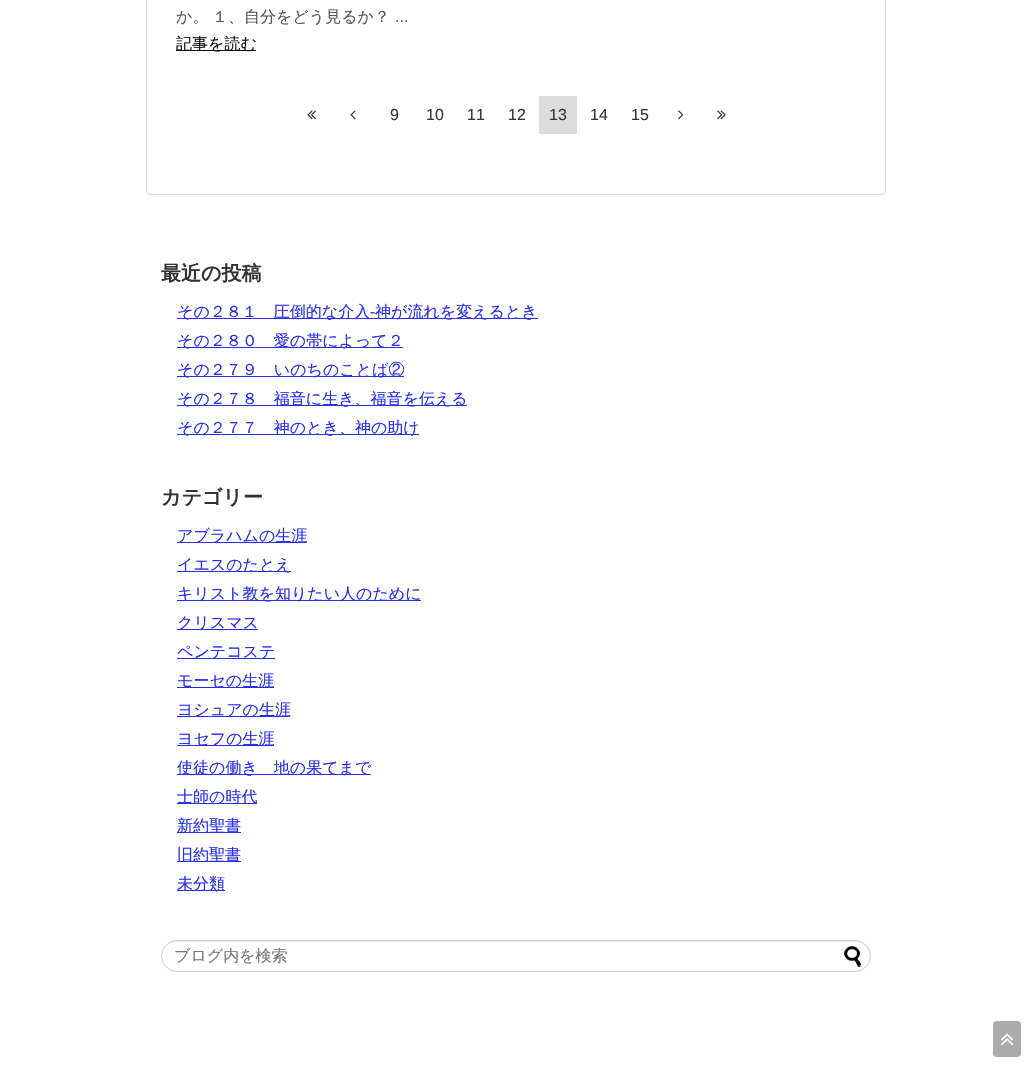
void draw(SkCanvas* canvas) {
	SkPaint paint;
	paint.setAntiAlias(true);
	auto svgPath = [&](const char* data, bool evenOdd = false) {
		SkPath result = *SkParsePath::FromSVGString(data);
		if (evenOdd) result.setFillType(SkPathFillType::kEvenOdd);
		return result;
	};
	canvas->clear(0xffffffff);
	paint.setStroke(true);
	paint.setStrokeWidth(1);
	paint.setColor(0xffdddddd);
	canvas->drawRoundRect(SkRect::MakeXYWH(146.5, -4.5, 739, 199), 3.5, 3.5, paint);
	SkFont f1(fontMgr->matchFamilyStyle("WenQuanYi Zen Hei", SkFontStyle(500, SkFontStyle::kNormal_Width, SkFontStyle::kUpright_Slant)), 16);
	f1.setSubpixel(true);
	paint.setStroke(false);
	paint.setColor(0xff555555);
	canvas->drawString("か。", 176, 22, f1, paint);
	canvas->drawString("１、自分をどう見るか？", 212, 22, f1, paint);
	SkFont f2(fontMgr->matchFamilyStyle("Liberation Sans", SkFontStyle::Normal()), 16);
	f2.setSubpixel(true);
	canvas->drawString("...", 395, 22, f2, paint);
	paint.setColor(0xff111111);
	canvas->drawRect(SkRect::MakeXYWH(176, 50, 80, 1), paint);
	canvas->drawString("記事を読む", 176, 49, f1, paint);
	canvas->drawImageRect(SkImages::DeferredFromEncodedData(SkData::MakeFromFileName("img1.png")), SkRect::MakeXYWH(307, 110, 9, 10), SkSamplingOptions());
	canvas->drawImageRect(SkImages::DeferredFromEncodedData(SkData::MakeFromFileName("img2.png")), SkRect::MakeXYWH(350, 110, 6, 10), SkSamplingOptions());
	paint.setColor(0xff333333);
	canvas->drawString("9", 390, 120, f2, paint);
	canvas->drawString("10", 426, 120, f2, paint);
	canvas->drawString("11", 467, 120, f2, paint);
	canvas->drawString("12", 508, 120, f2, paint);
	paint.setColor(0xffdddddd);
	canvas->drawRect(SkRect::MakeXYWH(539, 96, 38, 38), paint);
	paint.setColor(0xff333333);
	canvas->drawString("13", 549, 120, f2, paint);
	canvas->drawString("14", 590, 120, f2, paint);
	canvas->drawString("15", 631, 120, f2, paint);
	canvas->drawImageRect(SkImages::DeferredFromEncodedData(SkData::MakeFromFileName("img3.png")), SkRect::MakeXYWH(678, 110, 6, 10), SkSamplingOptions());
	canvas->drawImageRect(SkImages::DeferredFromEncodedData(SkData::MakeFromFileName("img4.png")), SkRect::MakeXYWH(717, 110, 9, 10), SkSamplingOptions());
	SkFont f3(fontMgr->matchFamilyStyle("WenQuanYi Zen Hei", SkFontStyle::Bold()), 20);
	f3.setSubpixel(true);
	canvas->drawString("最近の投稿", 161, 280, f3, paint);
	paint.setColor(0xff252fed);
	canvas->drawRect(SkRect::MakeXYWH(177, 318, 361, 1), paint);
	canvas->drawString("その２８１　圧倒的な介入", 177, 317, f1, paint);
	canvas->drawString("‐", 370, 317, f2, paint);
	canvas->drawString("神が流れを変えるとき", 375, 317, f1, paint);
	canvas->drawRect(SkRect::MakeXYWH(177, 347, 226, 1), paint);
	canvas->drawString("その２８０　愛の帯によって２", 177, 346, f1, paint);
	canvas->drawRect(SkRect::MakeXYWH(177, 376, 227, 1), paint);
	canvas->drawString("その２７９　いのちのことば②", 177, 375, f1, paint);
	canvas->drawRect(SkRect::MakeXYWH(177, 405, 290, 1), paint);
	canvas->drawString("その２７８　福音に生き、福音を伝える", 177, 404, f1, paint);
	canvas->drawRect(SkRect::MakeXYWH(177, 434, 242, 1), paint);
	canvas->drawString("その２７７　神のとき、神の助け", 177, 433, f1, paint);
	paint.setColor(0xff333333);
	canvas->drawString("カテゴリー", 161, 504, f3, paint);
	paint.setColor(0xff252fed);
	canvas->drawRect(SkRect::MakeXYWH(177, 542, 130, 1), paint);
	canvas->drawString("アブラハムの生涯", 177, 541, f1, paint);
	canvas->drawRect(SkRect::MakeXYWH(177, 571, 114, 1), paint);
	canvas->drawString("イエスのたとえ", 177, 570, f1, paint);
	canvas->drawRect(SkRect::MakeXYWH(177, 600, 244, 1), paint);
	canvas->drawString("キリスト教を知りたい人のために", 177, 599, f1, paint);
	canvas->drawRect(SkRect::MakeXYWH(177, 629, 81, 1), paint);
	canvas->drawString("クリスマス", 177, 628, f1, paint);
	canvas->drawRect(SkRect::MakeXYWH(177, 658, 98, 1), paint);
	canvas->drawString("ペンテコステ", 177, 657, f1, paint);
	canvas->drawRect(SkRect::MakeXYWH(177, 687, 97, 1), paint);
	canvas->drawString("モーセの生涯", 177, 686, f1, paint);
	canvas->drawRect(SkRect::MakeXYWH(177, 716, 113, 1), paint);
	canvas->drawString("ヨシュアの生涯", 177, 715, f1, paint);
	canvas->drawRect(SkRect::MakeXYWH(177, 745, 97, 1), paint);
	canvas->drawString("ヨセフの生涯", 177, 744, f1, paint);
	canvas->drawRect(SkRect::MakeXYWH(177, 774, 194, 1), paint);
	canvas->drawString("使徒の働き　地の果てまで", 177, 773, f1, paint);
	canvas->drawRect(SkRect::MakeXYWH(177, 803, 80, 1), paint);
	canvas->drawString("士師の時代", 177, 802, f1, paint);
	canvas->drawRect(SkRect::MakeXYWH(177, 832, 64, 1), paint);
	canvas->drawString("新約聖書", 177, 831, f1, paint);
	canvas->drawRect(SkRect::MakeXYWH(177, 861, 64, 1), paint);
	canvas->drawString("旧約聖書", 177, 860, f1, paint);
	canvas->drawRect(SkRect::MakeXYWH(177, 890, 48, 1), paint);
	canvas->drawString("未分類", 177, 889, f1, paint);
	paint.setColor(0xffececec);
	canvas->drawPath(svgPath("M177 942H858C868 944 873 957 867 965C872 958 870 948 863 944C861 942 858 941 855 941H177C169 941 162 948 162 956C162 949 167 942 177 942Z"), paint);
	paint.setStroke(true);
	paint.setColor(0xffcccccc);
	canvas->drawRoundRect(SkRect::MakeXYWH(161.5, 940.5, 709, 31), 15.5, 15.5, paint);
	paint.setStroke(false);
	paint.setColor(0xff757575);
	canvas->drawString("ブログ内を検索", 174, 961, f1, paint);
	canvas->drawImageRect(SkImages::DeferredFromEncodedData(SkData::MakeFromFileName("img5.png")), SkRect::MakeXYWH(844, 946, 17, 21), SkSamplingOptions());
	paint.setColor(0xffababab);
	canvas->drawRoundRect(SkRect::MakeXYWH(993, 1021, 28, 36), 4, 4, paint);
	canvas->drawImageRect(SkImages::DeferredFromEncodedData(SkData::MakeFromFileName("img6.png")), SkRect::MakeXYWH(1001, 1033, 13, 13), SkSamplingOptions());
}
